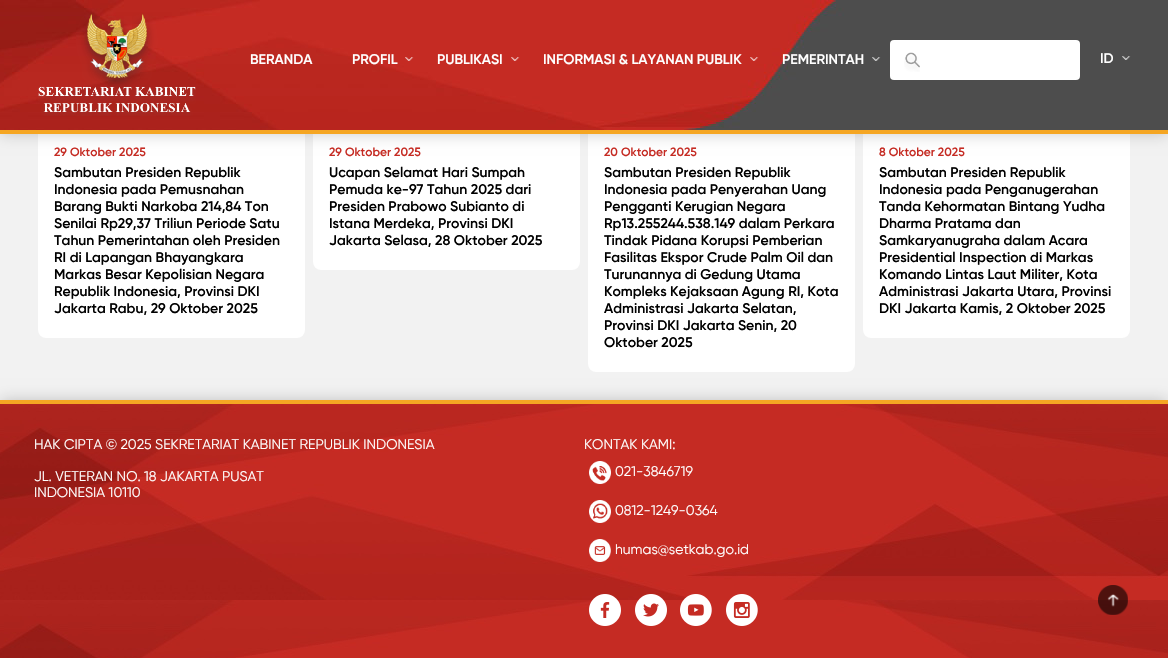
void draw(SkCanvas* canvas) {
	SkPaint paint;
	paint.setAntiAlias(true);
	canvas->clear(0xfff2f2f2);
	paint.setColor(0xffffffff);
	canvas->drawRoundRect(SkRect::MakeXYWH(38, -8, 267, 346), 8, 8, paint);
	canvas->drawRoundRect(SkRect::MakeXYWH(313, -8, 267, 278), 8, 8, paint);
	canvas->drawRoundRect(SkRect::MakeXYWH(588, -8, 267, 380), 8, 8, paint);
	canvas->drawRoundRect(SkRect::MakeXYWH(863, -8, 267, 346), 8, 8, paint);
	paint.setColor(0x33000000);
	paint.setMaskFilter(SkMaskFilter::MakeBlur(kNormal_SkBlurStyle, 7.5));
	canvas->drawRect(SkRect::MakeXYWH(0, 0, 1168, 134), paint);
	paint.setMaskFilter(nullptr);
	canvas->drawImageRect(SkImages::DeferredFromEncodedData(SkData::MakeFromFileName("img1.png")), SkRect::MakeXYWH(0, 0, 1168, 130), SkSamplingOptions());
	paint.setColor(0xfff5a623);
	canvas->drawRect(SkRect::MakeXYWH(0, 130, 1168, 4), paint);
	canvas->drawImageRect(SkImages::DeferredFromEncodedData(SkData::MakeFromFileName("img2.png")), SkRect::MakeXYWH(38, 13, 158, 103), SkSamplingOptions());
	SkFont f1(fontMgr->matchFamilyStyle("Gilroy", SkFontStyle(600, SkFontStyle::kNormal_Width, SkFontStyle::kUpright_Slant)), 14);
	f1.setSubpixel(true);
	paint.setColor(0xffffffff);
	canvas->drawString("BERANDA", 250, 64, f1, paint);
	canvas->drawImageRect(SkImages::DeferredFromEncodedData(SkData::MakeFromFileName("img3.png")), SkRect::MakeXYWH(405, 57, 9, 4), SkSamplingOptions());
	canvas->drawString("PROFIL", 352, 64, f1, paint);
	canvas->drawImageRect(SkImages::DeferredFromEncodedData(SkData::MakeFromFileName("img3.png")), SkRect::MakeXYWH(511, 57, 9, 4), SkSamplingOptions());
	canvas->drawString("PUBLIKASI", 437, 64, f1, paint);
	canvas->drawImageRect(SkImages::DeferredFromEncodedData(SkData::MakeFromFileName("img3.png")), SkRect::MakeXYWH(750, 57, 9, 4), SkSamplingOptions());
	canvas->drawString("INFORMASI & LAYANAN PUBLIK", 543, 64, f1, paint);
	canvas->drawImageRect(SkImages::DeferredFromEncodedData(SkData::MakeFromFileName("img4.png")), SkRect::MakeXYWH(872, 57, 9, 4), SkSamplingOptions());
	canvas->drawString("PEMERINTAH", 782, 64, f1, paint);
	canvas->drawRoundRect(SkRect::MakeXYWH(890, 40, 190, 40), 4, 4, paint);
	canvas->drawImageRect(SkImages::DeferredFromEncodedData(SkData::MakeFromFileName("img5.png")), SkRect::MakeXYWH(904, 52, 16, 20), SkSamplingOptions());
	canvas->drawImageRect(SkImages::DeferredFromEncodedData(SkData::MakeFromFileName("img4.png")), SkRect::MakeXYWH(1122, 56, 9, 4), SkSamplingOptions());
	canvas->drawString("ID", 1100, 63, f1, paint);
	SkFont f2(fontMgr->matchFamilyStyle("Gilroy", SkFontStyle(600, SkFontStyle::kNormal_Width, SkFontStyle::kUpright_Slant)), 12);
	f2.setSubpixel(true);
	paint.setColor(0xffc52b23);
	canvas->drawString("29 Oktober 2025", 54, 156, f2, paint);
	paint.setColor(0xff000000);
	canvas->drawString("Sambutan Presiden Republik", 54, 177, f1, paint);
	canvas->drawString("Indonesia pada Pemusnahan", 54, 194, f1, paint);
	canvas->drawString("Barang Bukti Narkoba 214,84 Ton", 54, 211, f1, paint);
	canvas->drawString("Senilai Rp29,37 Triliun Periode Satu", 54, 228, f1, paint);
	canvas->drawString("Tahun Pemerintahan oleh Presiden", 54, 245, f1, paint);
	canvas->drawString("RI di Lapangan Bhayangkara", 54, 262, f1, paint);
	canvas->drawString("Markas Besar Kepolisian Negara", 54, 279, f1, paint);
	canvas->drawString("Republik Indonesia, Provinsi DKI", 54, 296, f1, paint);
	canvas->drawString("Jakarta Rabu, 29 Oktober 2025", 54, 313, f1, paint);
	paint.setColor(0xffc52b23);
	canvas->drawString("29 Oktober 2025", 329, 156, f2, paint);
	paint.setColor(0xff000000);
	canvas->drawString("Ucapan Selamat Hari Sumpah", 329, 177, f1, paint);
	canvas->drawString("Pemuda ke-97 Tahun 2025 dari", 329, 194, f1, paint);
	canvas->drawString("Presiden Prabowo Subianto di", 329, 211, f1, paint);
	canvas->drawString("Istana Merdeka, Provinsi DKI", 329, 228, f1, paint);
	canvas->drawString("Jakarta Selasa, 28 Oktober 2025", 329, 245, f1, paint);
	paint.setColor(0xffc52b23);
	canvas->drawString("20 Oktober 2025", 604, 156, f2, paint);
	paint.setColor(0xff000000);
	canvas->drawString("Sambutan Presiden Republik", 604, 177, f1, paint);
	canvas->drawString("Indonesia pada Penyerahan Uang", 604, 194, f1, paint);
	canvas->drawString("Pengganti Kerugian Negara", 604, 211, f1, paint);
	canvas->drawString("Rp13.255244.538.149 dalam Perkara", 604, 228, f1, paint);
	canvas->drawString("Tindak Pidana Korupsi Pemberian", 604, 245, f1, paint);
	canvas->drawString("Fasilitas Ekspor Crude Palm Oil dan", 604, 262, f1, paint);
	canvas->drawString("Turunannya di Gedung Utama", 604, 279, f1, paint);
	canvas->drawString("Kompleks Kejaksaan Agung RI, Kota", 604, 296, f1, paint);
	canvas->drawString("Administrasi Jakarta Selatan,", 604, 313, f1, paint);
	canvas->drawString("Provinsi DKI Jakarta Senin, 20", 604, 330, f1, paint);
	canvas->drawString("Oktober 2025", 604, 347, f1, paint);
	paint.setColor(0xffc52b23);
	canvas->drawString("8 Oktober 2025", 879, 156, f2, paint);
	paint.setColor(0xff000000);
	canvas->drawString("Sambutan Presiden Republik", 879, 177, f1, paint);
	canvas->drawString("Indonesia pada Penganugerahan", 879, 194, f1, paint);
	canvas->drawString("Tanda Kehormatan Bintang Yudha", 879, 211, f1, paint);
	canvas->drawString("Dharma Pratama dan", 879, 228, f1, paint);
	canvas->drawString("Samkaryanugraha dalam Acara", 879, 245, f1, paint);
	canvas->drawString("Presidential Inspection di Markas", 879, 262, f1, paint);
	canvas->drawString("Komando Lintas Laut Militer, Kota", 879, 279, f1, paint);
	canvas->drawString("Administrasi Jakarta Utara, Provinsi", 879, 296, f1, paint);
	canvas->drawString("DKI Jakarta Kamis, 2 Oktober 2025", 879, 313, f1, paint);
	paint.setColor(0x33000000);
	paint.setMaskFilter(SkMaskFilter::MakeBlur(kNormal_SkBlurStyle, 7.5));
	canvas->drawRect(SkRect::MakeXYWH(0, 400, 1168, 258), paint);
	paint.setMaskFilter(nullptr);
	canvas->drawImageRect(SkImages::DeferredFromEncodedData(SkData::MakeFromFileName("img6.png")), SkRect::MakeXYWH(0, 404, 1168, 254), SkSamplingOptions());
	paint.setColor(0xfff5a623);
	canvas->drawRect(SkRect::MakeXYWH(0, 400, 1168, 4), paint);
	SkFont f3(fontMgr->matchFamilyStyle("Gilroy", SkFontStyle::Normal()), 14);
	f3.setSubpixel(true);
	paint.setColor(0xffffffff);
	canvas->drawString("HAK CIPTA © 2025 SEKRETARIAT KABINET REPUBLIK INDONESIA", 34, 449, f3, paint);
	canvas->drawString("JL. VETERAN NO. 18 JAKARTA PUSAT", 34, 481, f3, paint);
	canvas->drawString("INDONESIA 10110", 34, 497, f3, paint);
	canvas->drawString("KONTAK KAMI:", 584, 449, f3, paint);
	canvas->drawImageRect(SkImages::DeferredFromEncodedData(SkData::MakeFromFileName("img7.png")), SkRect::MakeXYWH(589, 461, 22, 23), SkSamplingOptions());
	canvas->drawString("021-3846719", 615, 476, f3, paint);
	canvas->drawImageRect(SkImages::DeferredFromEncodedData(SkData::MakeFromFileName("img8.png")), SkRect::MakeXYWH(589, 500, 22, 23), SkSamplingOptions());
	canvas->drawString("0812-1249-0364", 615, 515, f3, paint);
	canvas->drawImageRect(SkImages::DeferredFromEncodedData(SkData::MakeFromFileName("img9.png")), SkRect::MakeXYWH(589, 539, 22, 23), SkSamplingOptions());
	canvas->drawString("humas@setkab.go.id", 615, 554, f3, paint);
	canvas->drawImageRect(SkImages::DeferredFromEncodedData(SkData::MakeFromFileName("img10.png")), SkRect::MakeXYWH(589, 594, 32, 32), SkSamplingOptions());
	canvas->drawImageRect(SkImages::DeferredFromEncodedData(SkData::MakeFromFileName("img11.png")), SkRect::MakeXYWH(635, 594, 32, 32), SkSamplingOptions());
	canvas->drawImageRect(SkImages::DeferredFromEncodedData(SkData::MakeFromFileName("img12.png")), SkRect::MakeXYWH(680, 594, 32, 32), SkSamplingOptions());
	canvas->drawImageRect(SkImages::DeferredFromEncodedData(SkData::MakeFromFileName("img13.png")), SkRect::MakeXYWH(726, 594, 32, 32), SkSamplingOptions());
	canvas->drawImageRect(SkImages::DeferredFromEncodedData(SkData::MakeFromFileName("img14.png")), SkRect::MakeXYWH(1098, 585, 30, 30), SkSamplingOptions());
}
